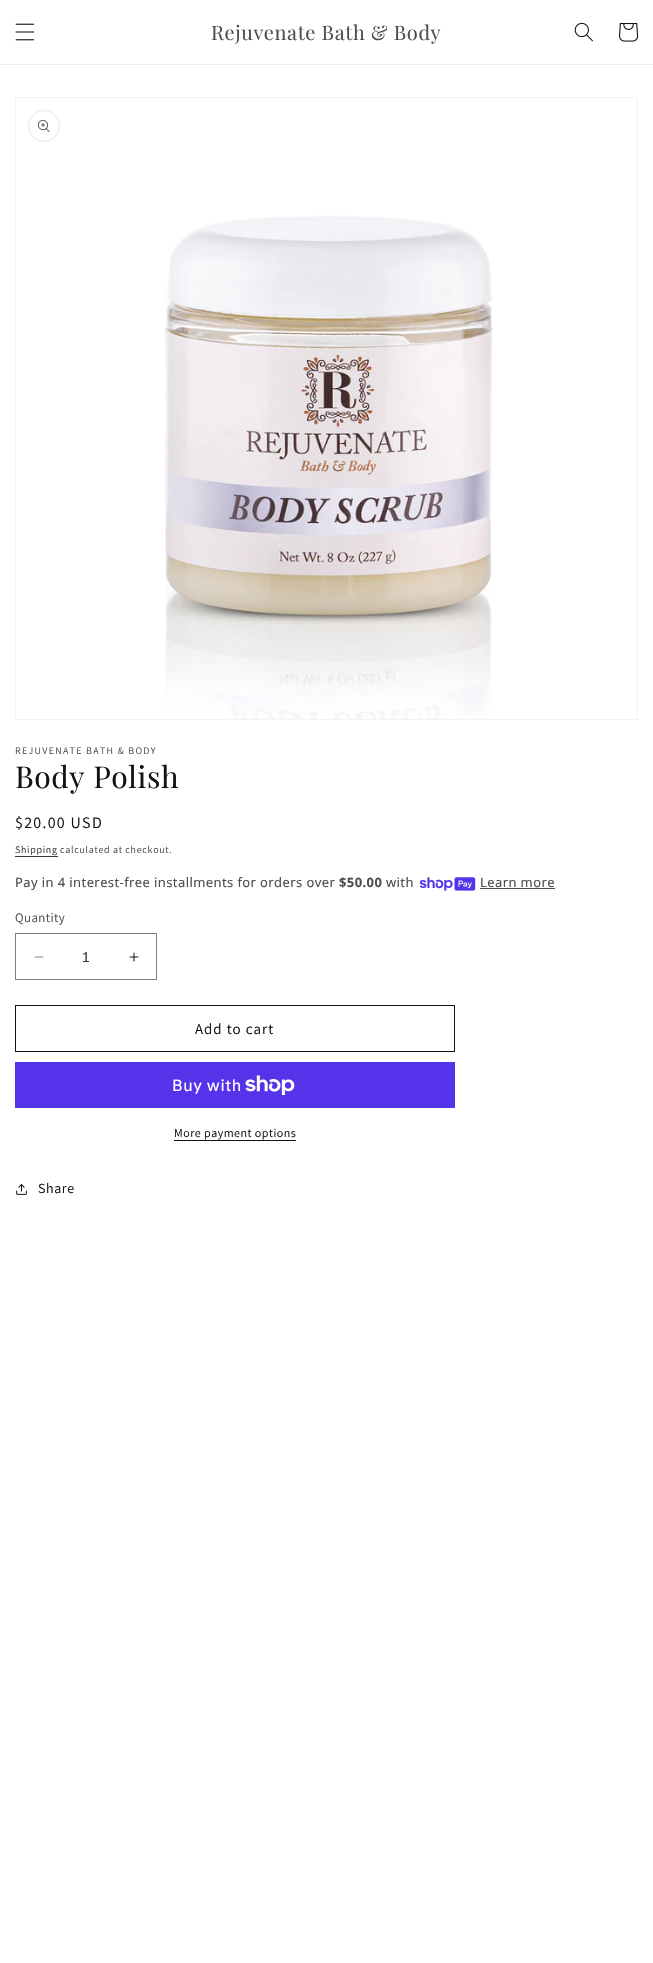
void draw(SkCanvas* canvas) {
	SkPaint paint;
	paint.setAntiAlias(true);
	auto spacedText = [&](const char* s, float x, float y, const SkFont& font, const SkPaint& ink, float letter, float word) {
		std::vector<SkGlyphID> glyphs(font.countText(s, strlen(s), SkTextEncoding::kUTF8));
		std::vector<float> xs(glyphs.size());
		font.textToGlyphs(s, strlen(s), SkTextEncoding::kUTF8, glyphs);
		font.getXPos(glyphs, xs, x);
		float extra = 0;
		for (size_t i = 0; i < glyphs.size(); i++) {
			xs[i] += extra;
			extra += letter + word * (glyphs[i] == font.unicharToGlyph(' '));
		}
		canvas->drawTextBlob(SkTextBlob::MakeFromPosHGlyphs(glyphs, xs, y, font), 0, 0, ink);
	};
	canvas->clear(0xffffffff);
	paint.setColor(0xffececec);
	canvas->drawRect(SkRect::MakeXYWH(0, 64, 653, 1), paint);
	canvas->drawImageRect(SkImages::DeferredFromEncodedData(SkData::MakeFromFileName("img1.png")), SkRect::MakeXYWH(15, 23, 20, 18), SkSamplingOptions());
	SkFont f1(fontMgr->matchFamilyStyle("Playfair Display", SkFontStyle::Normal()), 20);
	f1.setSubpixel(true);
	paint.setColor(0xff4d4d4d);
	spacedText("Rejuvenate Bath & Body", 211, 40, f1, paint, 0.6, 0);
	canvas->drawImageRect(SkImages::DeferredFromEncodedData(SkData::MakeFromFileName("img2.png")), SkRect::MakeXYWH(574, 22, 19, 20), SkSamplingOptions());
	canvas->drawImageRect(SkImages::DeferredFromEncodedData(SkData::MakeFromFileName("img3.png")), SkRect::MakeXYWH(619, 23, 20, 19), SkSamplingOptions());
	paint.setStroke(true);
	paint.setStrokeWidth(1);
	paint.setColor(0xfff3f3f3);
	canvas->drawRect(SkRect::MakeXYWH(15.5, 97.5, 622, 622), paint);
	paint.setColor(0xffe7e7e7);
	canvas->drawCircle(44, 126, 15.5, paint);
	canvas->drawImageRect(SkImages::DeferredFromEncodedData(SkData::MakeFromFileName("img4.png")), SkRect::MakeXYWH(38, 120, 12, 12), SkSamplingOptions());
	canvas->drawImageRect(SkImages::DeferredFromEncodedData(SkData::MakeFromFileName("img5.png")), SkRect::MakeXYWH(165, 215, 328, 504), SkSamplingOptions());
	SkFont f2(fontMgr->matchFamilyStyle("Assistant", SkFontStyle::Normal()), 10);
	f2.setSubpixel(true);
	paint.setStroke(false);
	paint.setColor(0xff4d4d4d);
	spacedText("REJUVENATE BATH & BODY", 15, 754, f2, paint, 1.3, 0);
	SkFont f3(fontMgr->matchFamilyStyle("Playfair Display", SkFontStyle::Normal()), 30);
	f3.setSubpixel(true);
	paint.setColor(0xff121212);
	spacedText("Body Polish", 15, 788, f3, paint, 0.6, 0);
	SkFont f4(fontMgr->matchFamilyStyle("Assistant", SkFontStyle::Normal()), 16);
	f4.setSubpixel(true);
	spacedText("$20.00 USD", 15, 828, f4, paint, 1.3, 0);
	paint.setColor(0xff363636);
	spacedText("Shipping", 15, 853, f2, paint, 0.7, 0);
	canvas->drawRect(SkRect::MakeXYWH(15, 856, 43, 1), paint);
	paint.setColor(0xff4d4d4d);
	spacedText("calculated at checkout.", 60, 853, f2, paint, 0.7, 0);
	SkFont f5(fontMgr->matchFamilyStyle("Noto Sans", SkFontStyle::Normal()), 13);
	f5.setSubpixel(true);
	spacedText("Pay in 4 interest-free installments for orders over", 15, 887, f5, paint, 0.4, 0);
	SkFont f6(fontMgr->matchFamilyStyle("Noto Sans", SkFontStyle::Bold()), 13);
	f6.setSubpixel(true);
	spacedText("$50.00", 339, 887, f6, paint, 0.4, 0);
	spacedText("with", 386, 887, f5, paint, 0.4, 0);
	canvas->drawImageRect(SkImages::DeferredFromEncodedData(SkData::MakeFromFileName("img6.png")), SkRect::MakeXYWH(419, 877, 57, 14), SkSamplingOptions());
	spacedText("Learn more", 480, 887, f5, paint, 0.4, 0);
	canvas->drawRect(SkRect::MakeXYWH(480, 888, 75, 1), paint);
	SkFont f7(fontMgr->matchFamilyStyle("Assistant", SkFontStyle::Normal()), 13);
	f7.setSubpixel(true);
	spacedText("Quantity", 15, 922, f7, paint, 0.4, 0);
	canvas->drawImageRect(SkImages::DeferredFromEncodedData(SkData::MakeFromFileName("img7.png")), SkRect::MakeXYWH(34, 956, 10, 2), SkSamplingOptions());
	canvas->drawImageRect(SkImages::DeferredFromEncodedData(SkData::MakeFromFileName("img8.png")), SkRect::MakeXYWH(129, 952, 10, 10), SkSamplingOptions());
	paint.setStroke(true);
	paint.setColor(0xff7d7d7d);
	canvas->drawRect(SkRect::MakeXYWH(15.5, 933.5, 141, 46), paint);
	SkFont f8(fontMgr->matchFamilyStyle("Liberation Sans", SkFontStyle::Normal()), 14);
	f8.setSubpixel(true);
	paint.setStroke(false);
	paint.setColor(0xff363636);
	canvas->drawString("1", 82, 962, f8, paint);
	paint.setStroke(true);
	paint.setColor(0xff121212);
	canvas->drawRect(SkRect::MakeXYWH(15.5, 1005.5, 439, 46), paint);
	SkFont f9(fontMgr->matchFamilyStyle("Assistant", SkFontStyle::Normal()), 15);
	f9.setSubpixel(true);
	paint.setStroke(false);
	spacedText("Add to cart", 195, 1034, f9, paint, 1, 0);
	paint.setColor(0xff5433eb);
	canvas->drawRect(SkRect::MakeXYWH(15, 1062, 440, 46), paint);
	SkFont f10(fontMgr->matchFamilyStyle("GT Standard", SkFontStyle::Normal()), 16);
	f10.setSubpixel(true);
	paint.setColor(0xffffffff);
	spacedText("Buy with", 172, 1091, f10, paint, 0.6, 0);
	canvas->drawImageRect(SkImages::DeferredFromEncodedData(SkData::MakeFromFileName("img9.png")), SkRect::MakeXYWH(245, 1075, 50, 20), SkSamplingOptions());
	SkFont f11(fontMgr->matchFamilyStyle("Assistant", SkFontStyle::Normal()), 12);
	f11.setSubpixel(true);
	paint.setColor(0xff121212);
	spacedText("More payment options", 174, 1137, f11, paint, 0.5, 0);
	canvas->drawRect(SkRect::MakeXYWH(174, 1140, 122, 1), paint);
	canvas->drawImageRect(SkImages::DeferredFromEncodedData(SkData::MakeFromFileName("img10.png")), SkRect::MakeXYWH(16, 1184, 11, 11), SkSamplingOptions());
	SkFont f12(fontMgr->matchFamilyStyle("Assistant", SkFontStyle::Normal()), 14);
	f12.setSubpixel(true);
	spacedText("Share", 38, 1193, f12, paint, 0.6, 0);
}
